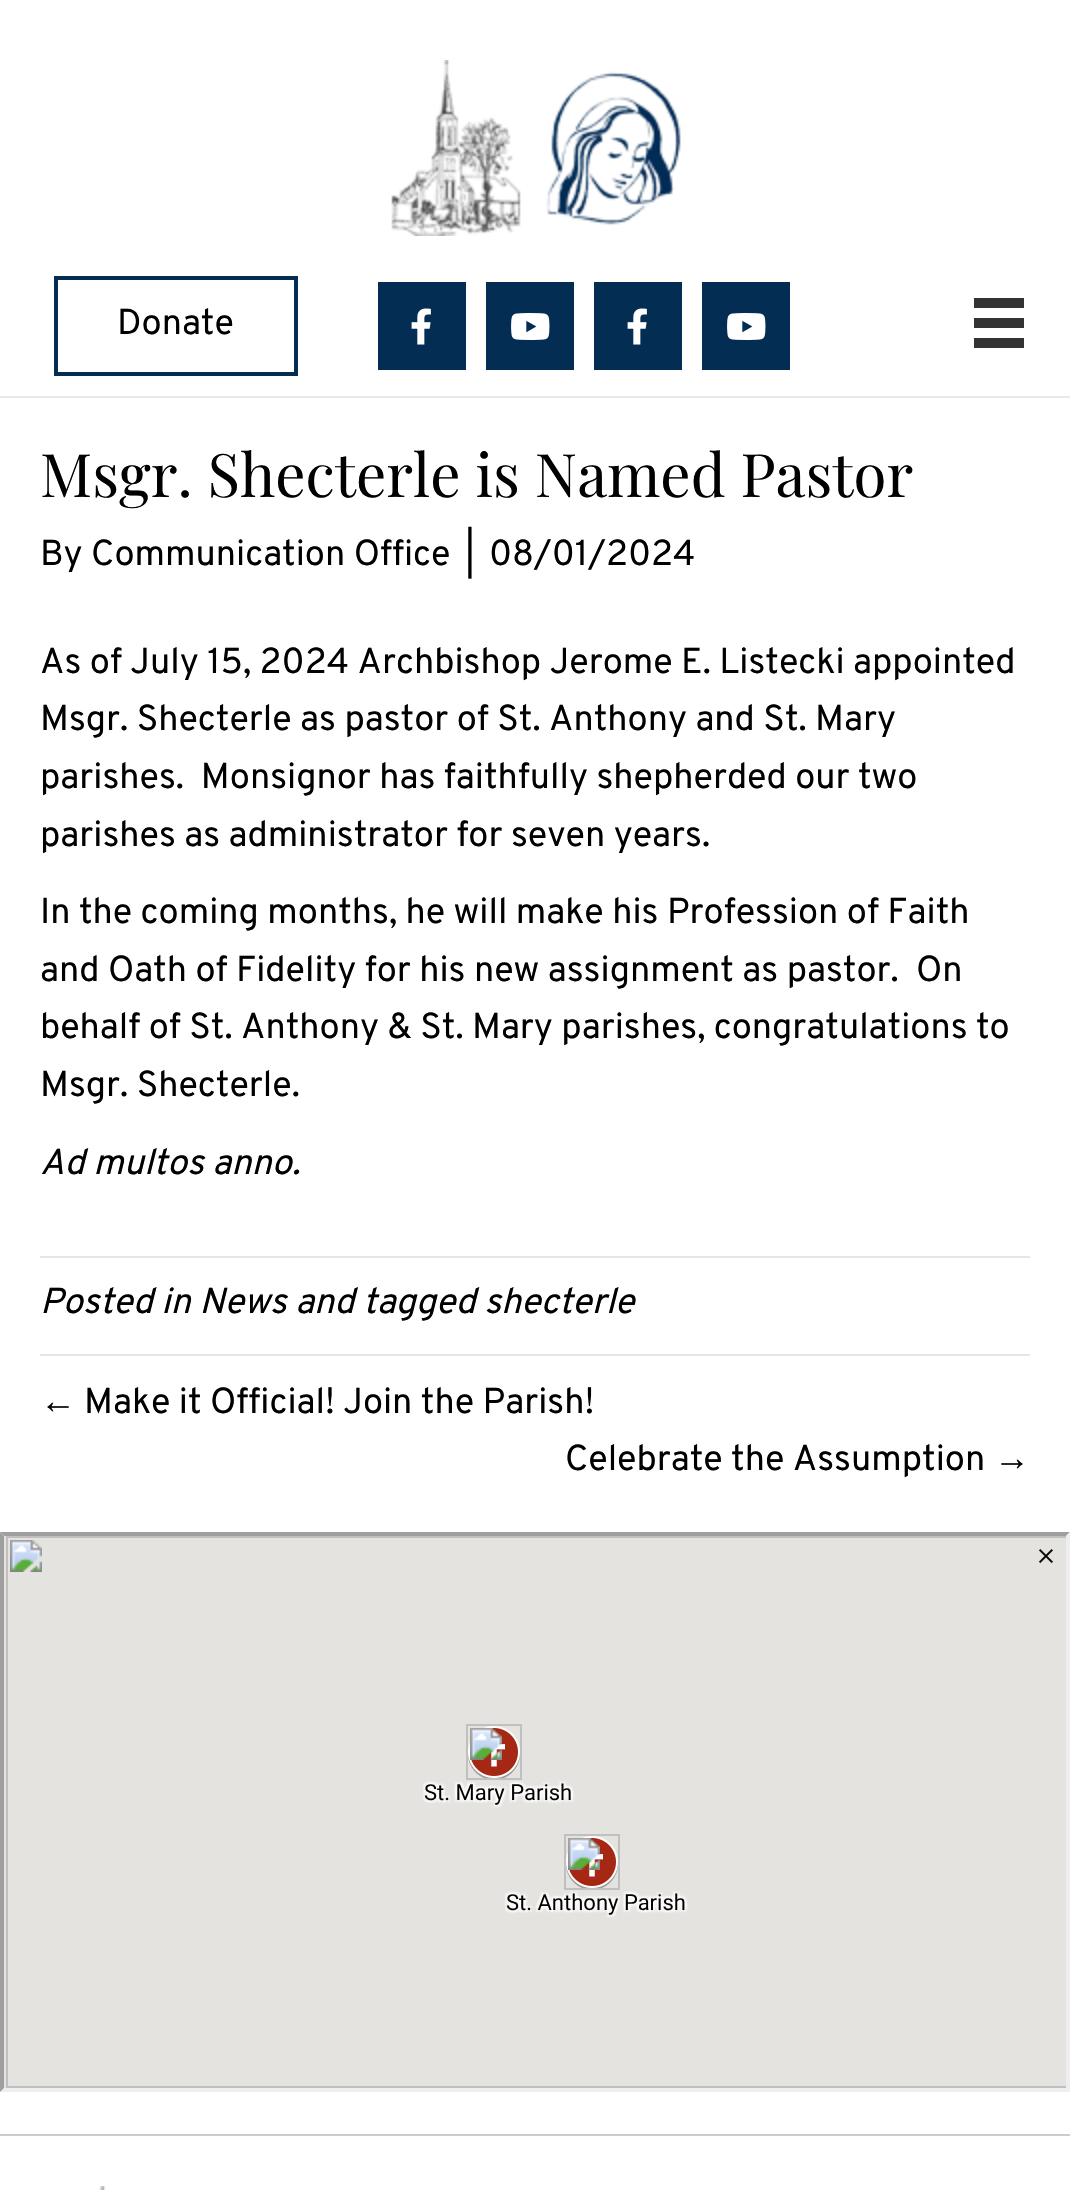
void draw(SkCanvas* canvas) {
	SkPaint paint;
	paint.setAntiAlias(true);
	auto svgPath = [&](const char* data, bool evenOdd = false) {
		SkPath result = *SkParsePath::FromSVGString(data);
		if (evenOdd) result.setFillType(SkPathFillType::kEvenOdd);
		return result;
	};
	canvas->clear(0xffffffff);
	paint.setColor(0xffeaeaea);
	canvas->drawRect(SkRect::MakeXYWH(0, 396, 1070, 2), paint);
	canvas->drawImageRect(SkImages::DeferredFromEncodedData(SkData::MakeFromFileName("img1.png")), SkRect::MakeXYWH(391, 60, 290, 176), SkSamplingOptions());
	paint.setStroke(true);
	paint.setStrokeWidth(4);
	paint.setColor(0xff042d54);
	canvas->drawRect(SkRect::MakeXYWH(56, 278, 240, 96), paint);
	SkFont f1(fontMgr->matchFamilyStyle("Overpass", SkFontStyle::Normal()), 36);
	f1.setSubpixel(true);
	paint.setStroke(false);
	paint.setColor(0xff000000);
	canvas->drawString("Donate", 117, 334, f1, paint);
	paint.setColor(0xff042d54);
	canvas->drawRect(SkRect::MakeXYWH(378, 282, 88, 88), paint);
	canvas->drawImageRect(SkImages::DeferredFromEncodedData(SkData::MakeFromFileName("img2.png")), SkRect::MakeXYWH(411, 308, 20, 37), SkSamplingOptions());
	canvas->drawRect(SkRect::MakeXYWH(486, 282, 88, 88), paint);
	canvas->drawImageRect(SkImages::DeferredFromEncodedData(SkData::MakeFromFileName("img3.png")), SkRect::MakeXYWH(511, 313, 39, 27), SkSamplingOptions());
	canvas->drawRect(SkRect::MakeXYWH(594, 282, 88, 88), paint);
	canvas->drawImageRect(SkImages::DeferredFromEncodedData(SkData::MakeFromFileName("img2.png")), SkRect::MakeXYWH(627, 308, 20, 37), SkSamplingOptions());
	canvas->drawRect(SkRect::MakeXYWH(702, 282, 88, 88), paint);
	canvas->drawImageRect(SkImages::DeferredFromEncodedData(SkData::MakeFromFileName("img3.png")), SkRect::MakeXYWH(727, 313, 39, 27), SkSamplingOptions());
	paint.setColor(0xff333333);
	canvas->drawRect(SkRect::MakeXYWH(974, 298, 50, 10), paint);
	canvas->drawRect(SkRect::MakeXYWH(974, 318, 50, 10), paint);
	canvas->drawRect(SkRect::MakeXYWH(974, 338, 50, 10), paint);
	SkFont f2(fontMgr->matchFamilyStyle("Playfair Display", SkFontStyle::Normal()), 60);
	f2.setSubpixel(true);
	paint.setColor(0xff000000);
	canvas->drawString("Msgr. Shecterle is Named Pastor", 40, 497, f2, paint);
	canvas->drawString("By Communication Office", 40, 565, f1, paint);
	canvas->drawString("|", 465, 565, f1, paint);
	canvas->drawString("08/01/2024", 489, 565, f1, paint);
	canvas->drawString("As of July 15, 2024 Archbishop Jerome E. Listecki appointed", 40, 673, f1, paint);
	canvas->drawString("Msgr. Shecterle as pastor of St. Anthony and St. Mary", 40, 730, f1, paint);
	canvas->drawString("parishes.  Monsignor has faithfully shepherded our two", 40, 788, f1, paint);
	canvas->drawString("parishes as administrator for seven years.", 40, 846, f1, paint);
	canvas->drawString("In the coming months, he will make his Profession of Faith", 40, 923, f1, paint);
	canvas->drawString("and Oath of Fidelity for his new assignment as pastor.", 40, 981, f1, paint);
	canvas->drawString("On", 916, 981, f1, paint);
	canvas->drawString("behalf of St. Anthony & St. Mary parishes, congratulations to", 40, 1038, f1, paint);
	canvas->drawString("Msgr. Shecterle.", 40, 1096, f1, paint);
	SkFont f3(fontMgr->matchFamilyStyle("Overpass", SkFontStyle::Italic()), 36);
	f3.setSubpixel(true);
	canvas->drawString("Ad multos anno.", 40, 1174, f3, paint);
	paint.setColor(0xffe6e6e6);
	canvas->drawRect(SkRect::MakeXYWH(40, 1256, 990, 2), paint);
	paint.setColor(0xff000000);
	canvas->drawString("Posted in News and tagged shecterle", 40, 1313, f3, paint);
	paint.setColor(0xffe6e6e6);
	canvas->drawRect(SkRect::MakeXYWH(40, 1354, 990, 2), paint);
	SkFont f4(fontMgr->matchFamilyStyle("Liberation Sans", SkFontStyle::Normal()), 36);
	f4.setSubpixel(true);
	paint.setColor(0xff000000);
	canvas->drawString("←", 40, 1413, f4, paint);
	canvas->drawString("Make it Official! Join the Parish!", 84, 1413, f1, paint);
	canvas->drawString("Celebrate the Assumption", 565, 1470, f1, paint);
	canvas->drawString("→", 994, 1470, f4, paint);
	paint.setColor(0xff9f9f9f);
	canvas->drawPath(svgPath("M0 1532H1070L1066 1536H4Z"), paint);
	paint.setColor(0xffeeeeee);
	canvas->drawPath(svgPath("M1070 1532V2092L1066 2088V1536Z"), paint);
	canvas->drawPath(svgPath("M1070 2092H0L4 2088H1066Z"), paint);
	paint.setColor(0xff9f9f9f);
	canvas->drawPath(svgPath("M0 2092V1532L4 1536V2088Z"), paint);
	canvas->drawImageRect(SkImages::DeferredFromEncodedData(SkData::MakeFromFileName("img4.png")), SkRect::MakeXYWH(4, 1536, 1062, 552), SkSamplingOptions());
	paint.setColor(0xffcccccc);
	canvas->drawRect(SkRect::MakeXYWH(0, 2134, 1070, 2), paint);
	canvas->drawImageRect(SkImages::DeferredFromEncodedData(SkData::MakeFromFileName("img5.png")), SkRect::MakeXYWH(99, 2186, 7, 4), SkSamplingOptions());
}
